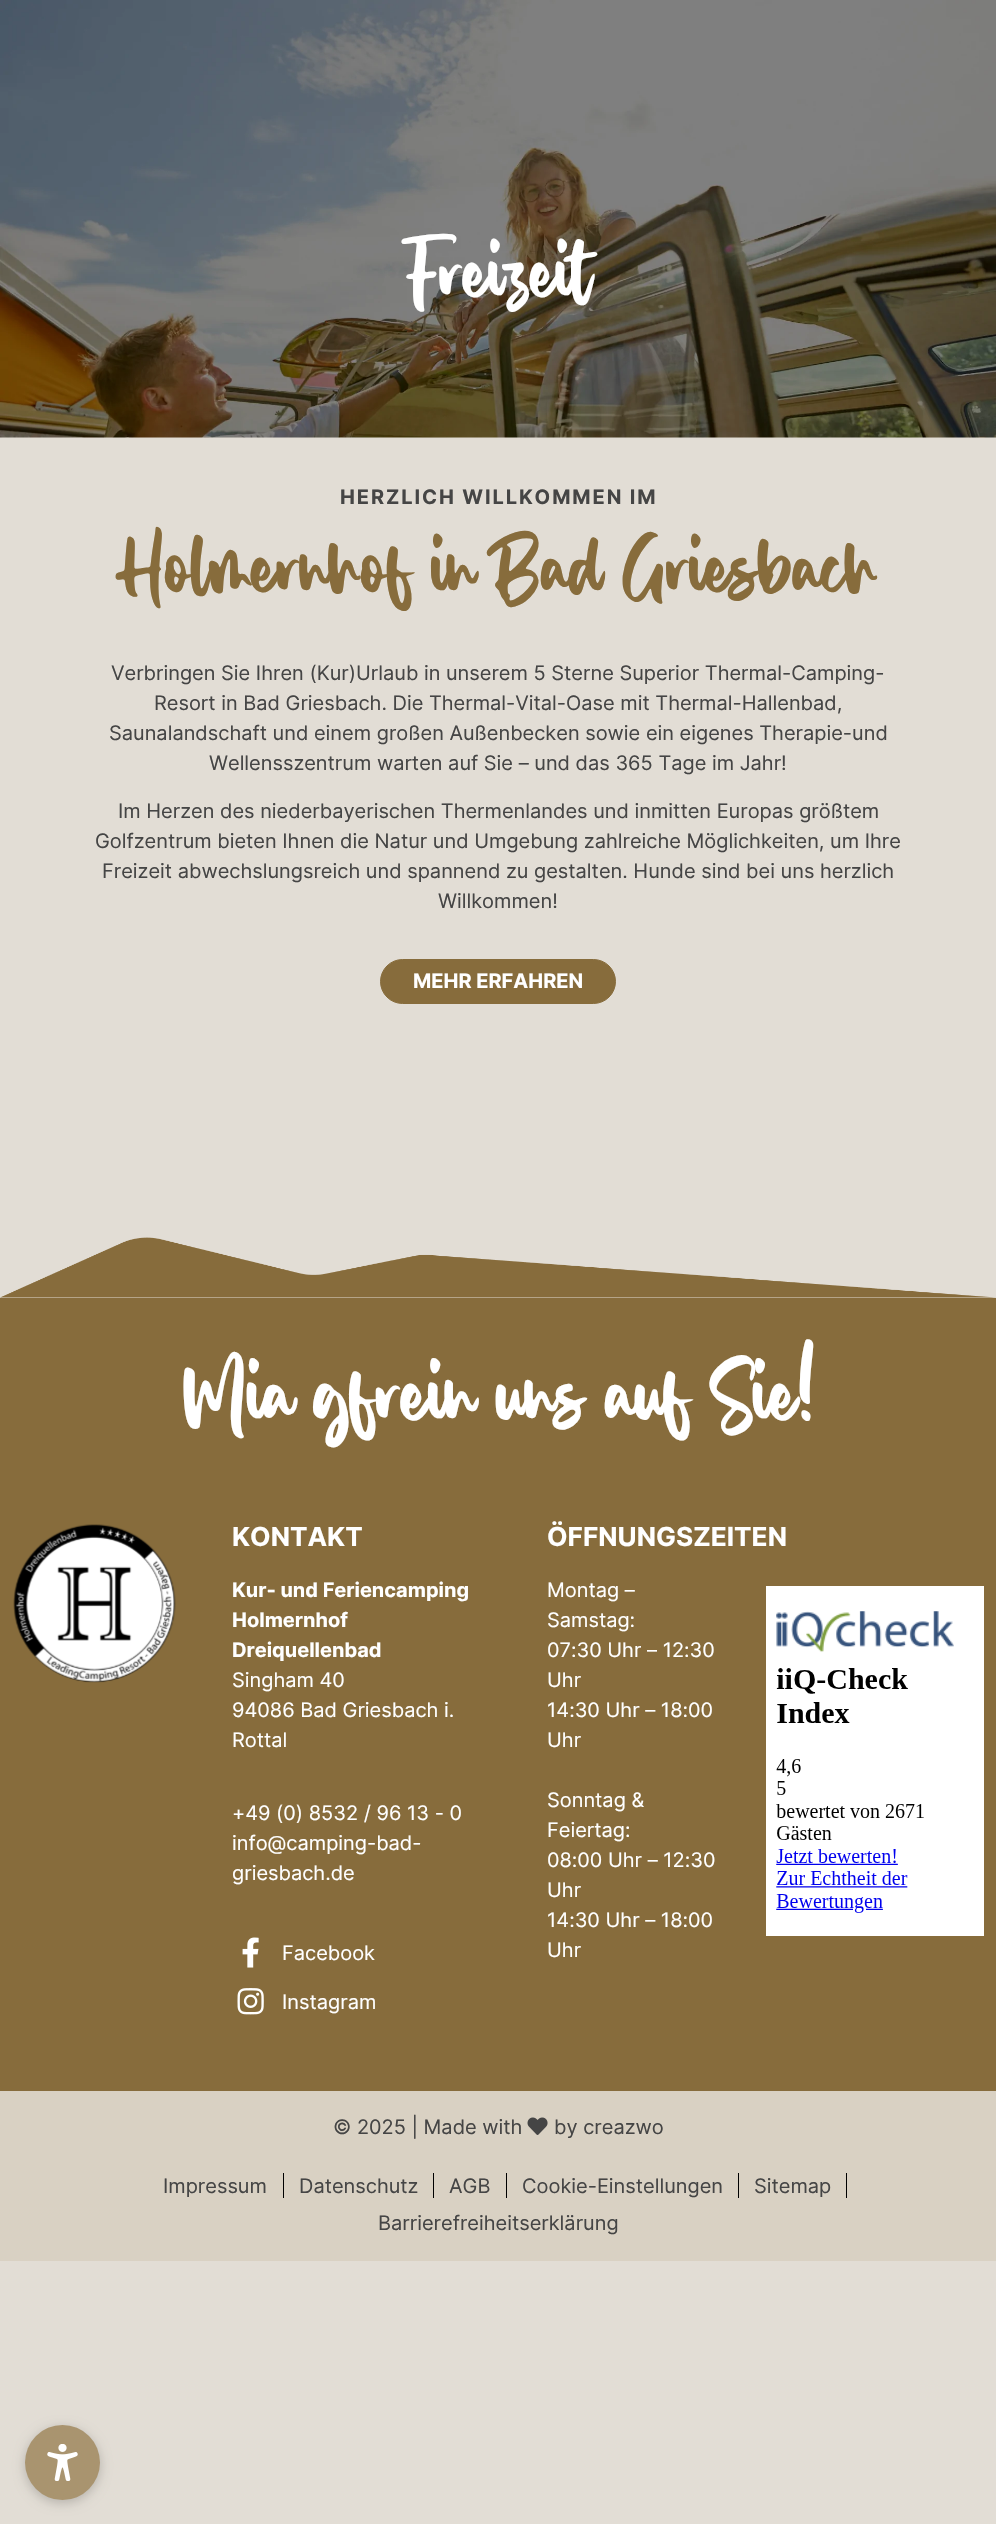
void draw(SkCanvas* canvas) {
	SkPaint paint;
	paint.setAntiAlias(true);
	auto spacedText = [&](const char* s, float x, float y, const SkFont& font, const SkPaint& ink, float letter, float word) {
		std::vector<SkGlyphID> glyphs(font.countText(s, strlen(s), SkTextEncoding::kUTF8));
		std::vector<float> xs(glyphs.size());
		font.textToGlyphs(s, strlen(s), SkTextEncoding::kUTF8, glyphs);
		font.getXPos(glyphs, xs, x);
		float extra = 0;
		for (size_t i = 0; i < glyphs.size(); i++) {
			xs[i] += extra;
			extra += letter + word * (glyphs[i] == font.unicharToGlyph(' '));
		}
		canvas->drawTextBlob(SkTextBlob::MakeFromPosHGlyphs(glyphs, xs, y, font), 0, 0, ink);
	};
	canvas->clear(0xffe2ddd5);
	canvas->drawImageRect(SkImages::DeferredFromEncodedData(SkData::MakeFromFileName("img1.png")), SkRect::MakeXYWH(0, 0, 996, 438), SkSamplingOptions());
	SkFont f1(fontMgr->matchFamilyStyle("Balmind", SkFontStyle::Normal()), 60);
	f1.setSubpixel(true);
	paint.setColor(0xffffffff);
	canvas->drawString("Freizeit", 406, 294, f1, paint);
	SkFont f2(fontMgr->matchFamilyStyle("Inter", SkFontStyle::Bold()), 20);
	f2.setSubpixel(true);
	paint.setColor(0xff454545);
	spacedText("HERZLICH WILLKOMMEN IM", 340, 504, f2, paint, 1.9, 0);
	paint.setColor(0xff876c3c);
	canvas->drawString("Holmernhof in Bad Griesbach", 120, 589, f1, paint);
	SkFont f3(fontMgr->matchFamilyStyle("Inter", SkFontStyle::Normal()), 20);
	f3.setSubpixel(true);
	paint.setColor(0xff454545);
	canvas->drawString("Verbringen Sie Ihren (Kur)Urlaub in unserem 5 Sterne Superior Thermal-Camping-", 111, 680, f3, paint);
	canvas->drawString("Resort in Bad Griesbach. Die Thermal-Vital-Oase mit Thermal-Hallenbad,", 154, 710, f3, paint);
	canvas->drawString("Saunalandschaft und einem großen Außenbecken sowie ein eigenes Therapie-und", 109, 740, f3, paint);
	canvas->drawString("Wellensszentrum warten auf Sie – und das 365 Tage im Jahr!", 209, 770, f3, paint);
	canvas->drawString("Im Herzen des niederbayerischen Thermenlandes und inmitten Europas größtem", 118, 818, f3, paint);
	canvas->drawString("Golfzentrum bieten Ihnen die Natur und Umgebung zahlreiche Möglichkeiten, um Ihre", 95, 848, f3, paint);
	canvas->drawString("Freizeit abwechslungsreich und spannend zu gestalten. Hunde sind bei uns herzlich", 102, 878, f3, paint);
	canvas->drawString("Willkommen!", 438, 908, f3, paint);
	paint.setColor(0xff876c3c);
	canvas->drawRoundRect(SkRect::MakeXYWH(380.5, 959.5, 235, 44), 22, 22, paint);
	paint.setStroke(true);
	paint.setStrokeWidth(1);
	canvas->drawRoundRect(SkRect::MakeXYWH(380.5, 959.5, 235, 44), 22, 22, paint);
	paint.setStroke(false);
	paint.setColor(0xffffffff);
	canvas->drawString("MEHR ERFAHREN", 413, 988, f2, paint);
	canvas->drawImageRect(SkImages::DeferredFromEncodedData(SkData::MakeFromFileName("img2.png")), SkRect::MakeXYWH(0, 1237, 996, 61), SkSamplingOptions());
	paint.setColor(0xff876c3c);
	canvas->drawRect(SkRect::MakeXYWH(0, 1298, 996, 793), paint);
	SkFont f4(fontMgr->matchFamilyStyle("Balmind", SkFontStyle::Normal()), 64);
	f4.setSubpixel(true);
	paint.setColor(0xffffffff);
	canvas->drawString("Mia gfrein uns auf Sie!", 182, 1417, f4, paint);
	canvas->drawImageRect(SkImages::DeferredFromEncodedData(SkData::MakeFromFileName("img3.png")), SkRect::MakeXYWH(13, 1524, 163, 159), SkSamplingOptions());
	SkFont f5(fontMgr->matchFamilyStyle("Inter", SkFontStyle::Bold()), 26.25);
	f5.setSubpixel(true);
	canvas->drawString("KONTAKT", 232, 1546, f5, paint);
	canvas->drawString("Kur- und Feriencamping", 232, 1597, f2, paint);
	canvas->drawString("Holmernhof", 232, 1627, f2, paint);
	canvas->drawString("Dreiquellenbad", 232, 1657, f2, paint);
	canvas->drawString("Singham 40", 232, 1687, f3, paint);
	canvas->drawString("94086 Bad Griesbach i.", 232, 1717, f3, paint);
	canvas->drawString("Rottal", 232, 1747, f3, paint);
	canvas->drawString("+49 (0) 8532 / 96 13 - 0", 232, 1820, f3, paint);
	canvas->drawString("info@camping-bad-", 232, 1850, f3, paint);
	canvas->drawString("griesbach.de", 232, 1880, f3, paint);
	canvas->drawImageRect(SkImages::DeferredFromEncodedData(SkData::MakeFromFileName("img4.png")), SkRect::MakeXYWH(242, 1937, 17, 31), SkSamplingOptions());
	canvas->drawString("Facebook", 282, 1960, f3, paint);
	canvas->drawImageRect(SkImages::DeferredFromEncodedData(SkData::MakeFromFileName("img5.png")), SkRect::MakeXYWH(237, 1988, 27, 27), SkSamplingOptions());
	canvas->drawString("Instagram", 282, 2009, f3, paint);
	canvas->drawString("ÖFFNUNGSZEITEN", 547, 1546, f5, paint);
	canvas->drawString("Montag –", 547, 1597, f3, paint);
	canvas->drawString("Samstag:", 547, 1627, f3, paint);
	canvas->drawString("07:30 Uhr – 12:30", 547, 1657, f3, paint);
	canvas->drawString("Uhr", 547, 1687, f3, paint);
	canvas->drawString("14:30 Uhr – 18:00", 547, 1717, f3, paint);
	canvas->drawString("Uhr", 547, 1747, f3, paint);
	canvas->drawString("Sonntag &", 547, 1807, f3, paint);
	canvas->drawString("Feiertag:", 547, 1837, f3, paint);
	canvas->drawString("08:00 Uhr – 12:30", 547, 1867, f3, paint);
	canvas->drawString("Uhr", 547, 1897, f3, paint);
	canvas->drawString("14:30 Uhr – 18:00", 547, 1927, f3, paint);
	canvas->drawString("Uhr", 547, 1957, f3, paint);
	canvas->drawRect(SkRect::MakeXYWH(766, 1586, 218, 350), paint);
	canvas->drawImageRect(SkImages::DeferredFromEncodedData(SkData::MakeFromFileName("img6.png")), SkRect::MakeXYWH(776, 1611, 178, 302), SkSamplingOptions());
	paint.setColor(0xffd9d1c3);
	canvas->drawRect(SkRect::MakeXYWH(0, 2091, 996, 170), paint);
	paint.setColor(0xff454545);
	canvas->drawString("© 2025 | Made with", 333, 2134, f3, paint);
	canvas->drawImageRect(SkImages::DeferredFromEncodedData(SkData::MakeFromFileName("img7.png")), SkRect::MakeXYWH(527, 2117, 21, 18), SkSamplingOptions());
	canvas->drawString("by creazwo", 554, 2134, f3, paint);
	canvas->drawString("Impressum", 163, 2193, f3, paint);
	paint.setColor(0xff000000);
	canvas->drawRect(SkRect::MakeXYWH(283, 2173, 1, 25), paint);
	paint.setColor(0xff454545);
	canvas->drawString("Datenschutz", 299, 2193, f3, paint);
	paint.setColor(0xff000000);
	canvas->drawRect(SkRect::MakeXYWH(433, 2173, 1, 25), paint);
	paint.setColor(0xff454545);
	canvas->drawString("AGB", 449, 2193, f3, paint);
	paint.setColor(0xff000000);
	canvas->drawRect(SkRect::MakeXYWH(506, 2173, 1, 25), paint);
	paint.setColor(0xff454545);
	canvas->drawString("Cookie-Einstellungen", 522, 2193, f3, paint);
	paint.setColor(0xff000000);
	canvas->drawRect(SkRect::MakeXYWH(738, 2173, 1, 25), paint);
	paint.setColor(0xff454545);
	canvas->drawString("Sitemap", 754, 2193, f3, paint);
	paint.setColor(0xff000000);
	canvas->drawRect(SkRect::MakeXYWH(846, 2173, 1, 25), paint);
	paint.setColor(0xff454545);
	canvas->drawString("Barrierefreiheitserklärung", 378, 2230, f3, paint);
	paint.setColor(0x33000000);
	paint.setMaskFilter(SkMaskFilter::MakeBlur(kNormal_SkBlurStyle, 6));
	canvas->drawRoundRect(SkRect::MakeXYWH(25, 2428, 75, 75), 37.5, 37.5, paint);
	paint.setMaskFilter(nullptr);
	paint.setColor(0xffa9946f);
	canvas->drawCircle(62.5, 2462.5, 37.5, paint);
	canvas->drawImageRect(SkImages::DeferredFromEncodedData(SkData::MakeFromFileName("img8.png")), SkRect::MakeXYWH(47, 2444, 31, 37), SkSamplingOptions());
}
